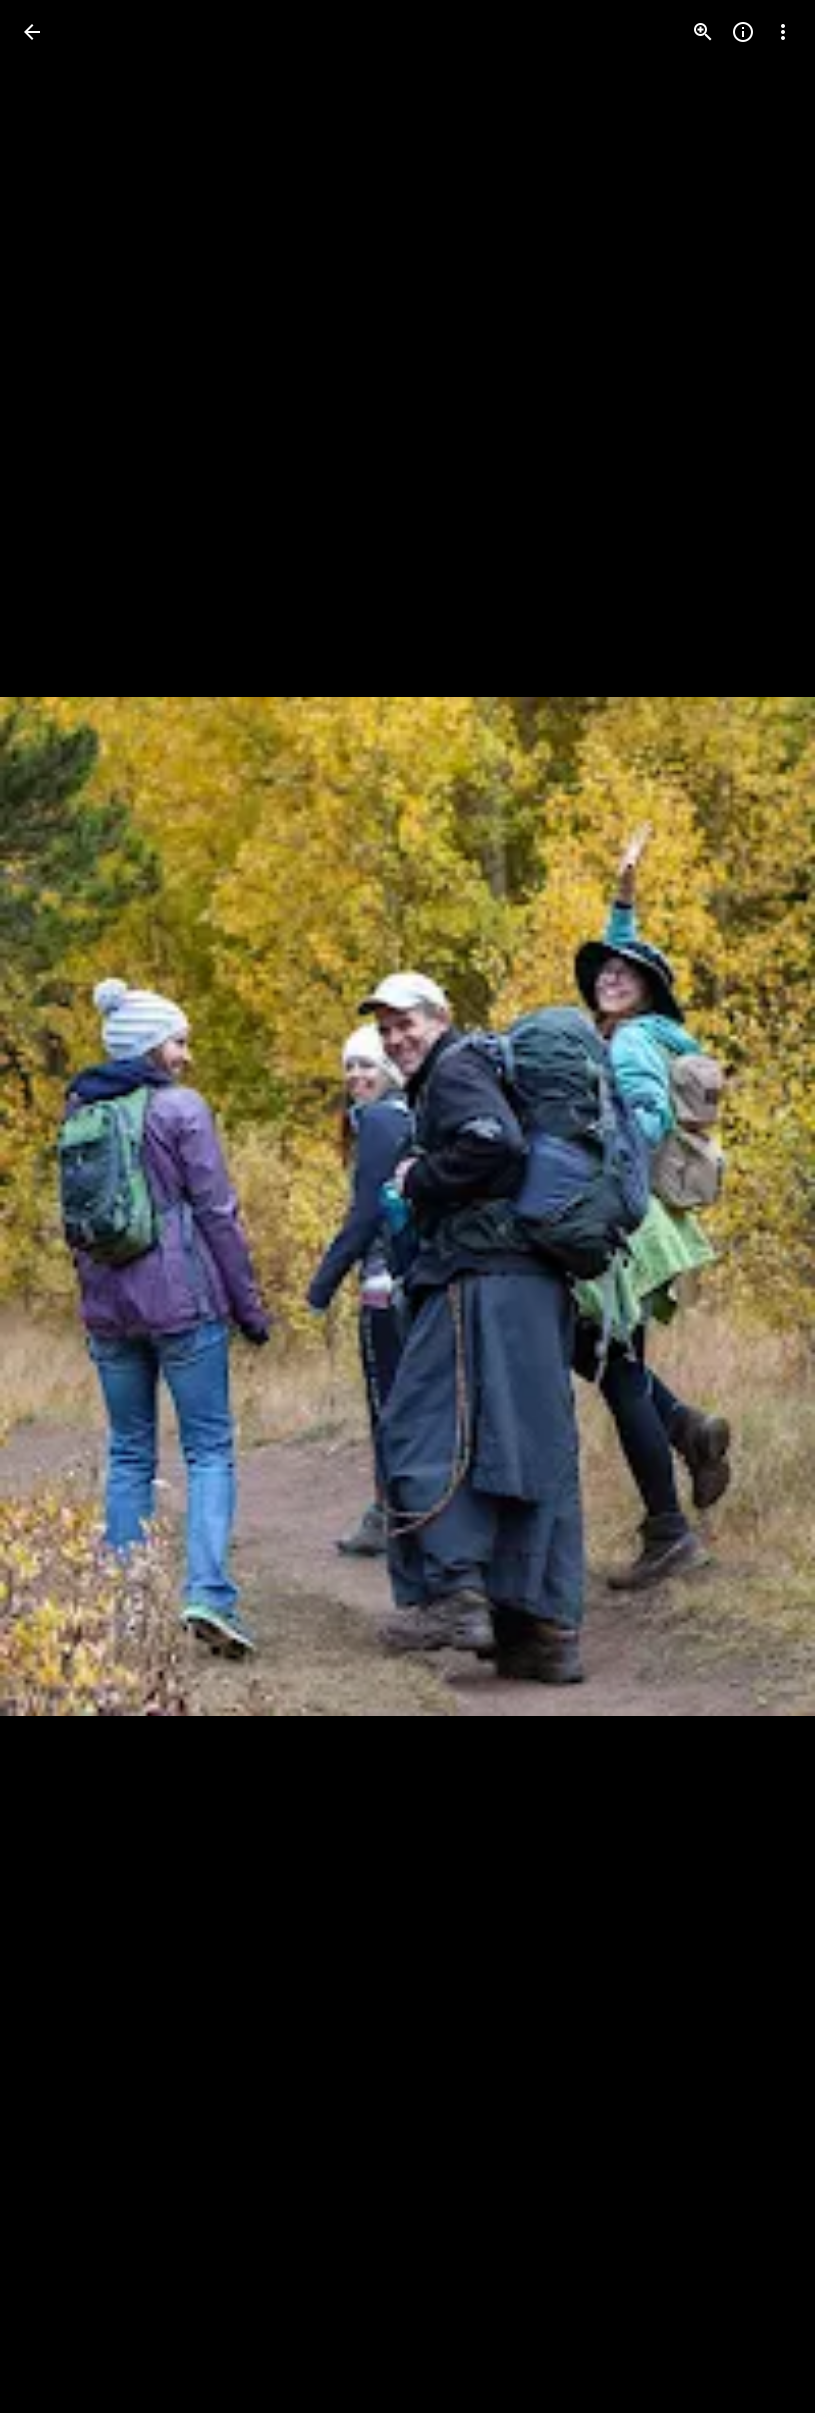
void draw(SkCanvas* canvas) {
	SkPaint paint;
	paint.setAntiAlias(true);
	canvas->clear(0xff000000);
	canvas->drawImageRect(SkImages::DeferredFromEncodedData(SkData::MakeFromFileName("img1.png")), SkRect::MakeXYWH(24, 24, 16, 16), SkSamplingOptions());
	canvas->drawImageRect(SkImages::DeferredFromEncodedData(SkData::MakeFromFileName("img2.png")), SkRect::MakeXYWH(694, 23, 18, 18), SkSamplingOptions());
	canvas->drawImageRect(SkImages::DeferredFromEncodedData(SkData::MakeFromFileName("img3.png")), SkRect::MakeXYWH(733, 22, 20, 20), SkSamplingOptions());
	canvas->drawImageRect(SkImages::DeferredFromEncodedData(SkData::MakeFromFileName("img4.png")), SkRect::MakeXYWH(781, 24, 4, 16), SkSamplingOptions());
	canvas->drawImageRect(SkImages::DeferredFromEncodedData(SkData::MakeFromFileName("img5.png")), SkRect::MakeXYWH(0, 697, 815, 1019), SkSamplingOptions());
}
